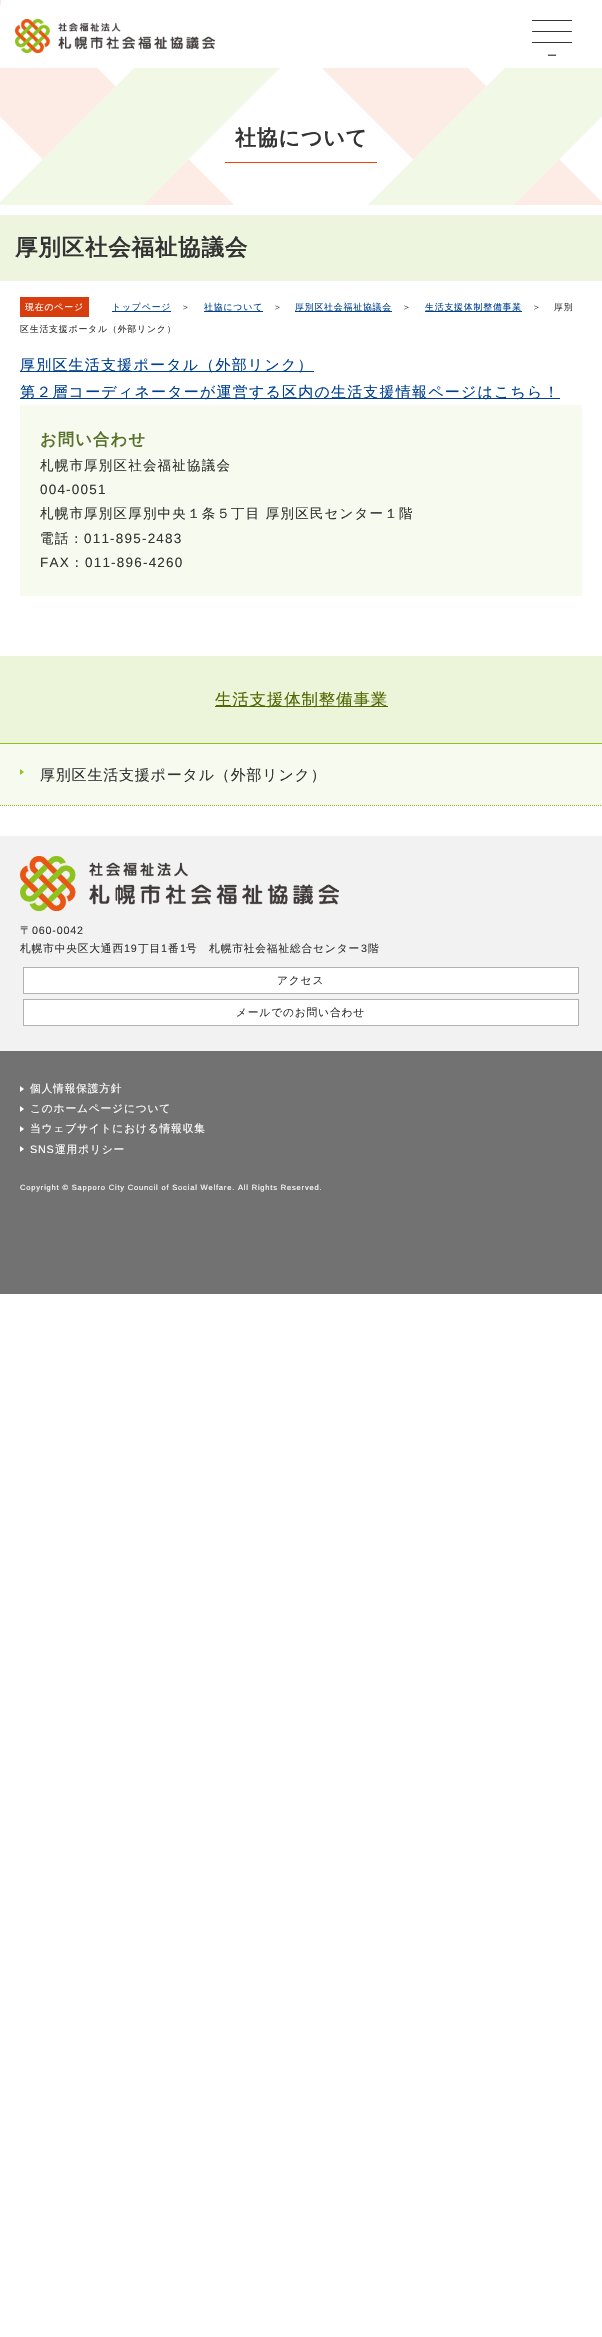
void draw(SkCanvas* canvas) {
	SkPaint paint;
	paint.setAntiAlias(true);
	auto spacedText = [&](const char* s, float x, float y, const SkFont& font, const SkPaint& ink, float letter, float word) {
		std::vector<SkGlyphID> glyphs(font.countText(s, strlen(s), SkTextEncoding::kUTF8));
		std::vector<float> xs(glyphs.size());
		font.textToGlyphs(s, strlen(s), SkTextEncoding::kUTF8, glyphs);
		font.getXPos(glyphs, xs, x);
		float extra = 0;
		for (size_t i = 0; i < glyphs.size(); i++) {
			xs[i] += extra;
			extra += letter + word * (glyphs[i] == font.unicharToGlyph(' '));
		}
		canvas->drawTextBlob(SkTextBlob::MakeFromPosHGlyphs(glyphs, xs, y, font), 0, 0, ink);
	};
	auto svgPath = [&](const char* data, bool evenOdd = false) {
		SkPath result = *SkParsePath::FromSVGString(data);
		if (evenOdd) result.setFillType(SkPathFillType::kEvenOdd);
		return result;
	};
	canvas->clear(0xffffffff);
	paint.setColor(0xfffde5e3);
	canvas->drawRect(SkRect::MakeXYWH(0, 0, 1, 5), paint);
	canvas->drawImageRect(SkImages::DeferredFromEncodedData(SkData::MakeFromFileName("img1.png")), SkRect::MakeXYWH(15, 19, 200, 34), SkSamplingOptions());
	paint.setColor(0xff333333);
	canvas->drawRoundRect(SkRect::MakeXYWH(532, 20, 40, 1), 0.5, 0.5, paint);
	canvas->drawRoundRect(SkRect::MakeXYWH(532, 31, 40, 1), 0.5, 0.5, paint);
	canvas->drawRoundRect(SkRect::MakeXYWH(532, 42, 40, 1), 0.5, 0.5, paint);
	SkFont f1(fontMgr->matchFamilyStyle("WenQuanYi Zen Hei", SkFontStyle(500, SkFontStyle::kNormal_Width, SkFontStyle::kUpright_Slant)), 10);
	f1.setSubpixel(true);
	canvas->drawString("ー", 547, 59, f1, paint);
	canvas->drawImageRect(SkImages::DeferredFromEncodedData(SkData::MakeFromFileName("img2.png")), SkRect::MakeXYWH(0, 68, 602, 137), SkSamplingOptions());
	paint.setColor(0xfff94000);
	canvas->drawRect(SkRect::MakeXYWH(225, 162, 152, 1), paint);
	SkFont f2(fontMgr->matchFamilyStyle("WenQuanYi Zen Hei", SkFontStyle::Bold()), 21);
	f2.setSubpixel(true);
	paint.setColor(0xff333333);
	spacedText("社協について", 235, 145, f2, paint, 0.8, 0);
	paint.setColor(0xffedf5de);
	canvas->drawRect(SkRect::MakeXYWH(0, 215, 602, 66), paint);
	SkFont f3(fontMgr->matchFamilyStyle("WenQuanYi Zen Hei", SkFontStyle::Bold()), 22.5);
	f3.setSubpixel(true);
	paint.setColor(0xff333333);
	spacedText("厚別区社会福祉協議会", 15, 255, f3, paint, 0.8, 0);
	paint.setColor(0xffd83d0e);
	canvas->drawRect(SkRect::MakeXYWH(20, 297, 69, 20), paint);
	SkFont f4(fontMgr->matchFamilyStyle("WenQuanYi Zen Hei", SkFontStyle(500, SkFontStyle::kNormal_Width, SkFontStyle::kUpright_Slant)), 8.9);
	f4.setSubpixel(true);
	paint.setColor(0xffffffff);
	spacedText("現在のページ", 25, 310, f4, paint, 0.8, 0);
	paint.setColor(0xff00418f);
	canvas->drawRect(SkRect::MakeXYWH(112, 311, 59, 1), paint);
	spacedText("トップページ", 112, 310, f4, paint, 0.8, 0);
	paint.setColor(0xff333333);
	spacedText("＞", 181, 310, f4, paint, 0.8, 0);
	paint.setColor(0xff00418f);
	canvas->drawRect(SkRect::MakeXYWH(204, 311, 59, 1), paint);
	spacedText("社協について", 204, 310, f4, paint, 0.8, 0);
	paint.setColor(0xff333333);
	spacedText("＞", 273, 310, f4, paint, 0.8, 0);
	paint.setColor(0xff00418f);
	canvas->drawRect(SkRect::MakeXYWH(295, 311, 97, 1), paint);
	spacedText("厚別区社会福祉協議会", 295, 310, f4, paint, 0.8, 0);
	paint.setColor(0xff333333);
	spacedText("＞", 402, 310, f4, paint, 0.8, 0);
	paint.setColor(0xff00418f);
	canvas->drawRect(SkRect::MakeXYWH(425, 311, 97, 1), paint);
	spacedText("生活支援体制整備事業", 425, 310, f4, paint, 0.8, 0);
	paint.setColor(0xff333333);
	spacedText("＞", 532, 310, f4, paint, 0.8, 0);
	spacedText("厚別", 554, 310, f4, paint, 0.8, 0);
	spacedText("区生活支援ポータル（外部リンク）", 20, 332, f4, paint, 0.8, 0);
	paint.setColor(0xff00418f);
	canvas->drawRect(SkRect::MakeXYWH(20, 371, 294, 1), paint);
	SkFont f5(fontMgr->matchFamilyStyle("WenQuanYi Zen Hei", SkFontStyle(500, SkFontStyle::kNormal_Width, SkFontStyle::kUpright_Slant)), 15);
	f5.setSubpixel(true);
	spacedText("厚別区生活支援ポータル（外部リンク）", 20, 370, f5, paint, 1.2, 0);
	canvas->drawRect(SkRect::MakeXYWH(20, 398, 540, 1), paint);
	spacedText("第２層コーディネーターが運営する区内の生活支援情報ページはこちら！", 20, 397, f5, paint, 1.2, 0);
	paint.setColor(0xfff7fbef);
	canvas->drawRect(SkRect::MakeXYWH(20, 405, 562, 191), paint);
	SkFont f6(fontMgr->matchFamilyStyle("WenQuanYi Zen Hei", SkFontStyle::Bold()), 16.25);
	f6.setSubpixel(true);
	paint.setColor(0xff58712a);
	spacedText("お問い合わせ", 40, 445, f6, paint, 1.2, 0);
	SkFont f7(fontMgr->matchFamilyStyle("WenQuanYi Zen Hei", SkFontStyle(500, SkFontStyle::kNormal_Width, SkFontStyle::kUpright_Slant)), 13.5);
	f7.setSubpixel(true);
	paint.setColor(0xff333333);
	spacedText("札幌市厚別区社会福祉協議会", 40, 470, f7, paint, 1.2, 0);
	SkFont f8(fontMgr->matchFamilyStyle("Liberation Sans", SkFontStyle::Normal()), 13.5);
	f8.setSubpixel(true);
	spacedText("004-0051", 40, 494, f8, paint, 1.2, 0);
	spacedText("札幌市厚別区厚別中央１条５丁目 厚別区民センター１階", 40, 518, f7, paint, 1.2, 0);
	spacedText("電話：", 40, 543, f7, paint, 1.2, 0);
	spacedText("011-895-2483", 84, 543, f8, paint, 1.2, 0);
	spacedText("FAX", 40, 567, f8, paint, 1.2, 0);
	spacedText("：", 70, 567, f7, paint, 1.2, 0);
	spacedText("011-896-4260", 85, 567, f8, paint, 1.2, 0);
	paint.setColor(0xfff7fbef);
	canvas->drawRect(SkRect::MakeXYWH(0, 744, 602, 62), paint);
	paint.setColor(0xffecf5da);
	canvas->drawRect(SkRect::MakeXYWH(0, 656, 602, 87), paint);
	paint.setColor(0xff8dc21f);
	canvas->drawRect(SkRect::MakeXYWH(0, 743, 602, 1), paint);
	paint.setColor(0xff4f6800);
	canvas->drawRect(SkRect::MakeXYWH(215, 706, 173, 1), paint);
	SkFont f9(fontMgr->matchFamilyStyle("WenQuanYi Zen Hei", SkFontStyle(500, SkFontStyle::kNormal_Width, SkFontStyle::kUpright_Slant)), 16.5);
	f9.setSubpixel(true);
	spacedText("生活支援体制整備事業", 215, 705, f9, paint, 0.8, 0);
	paint.setStroke(true);
	paint.setStrokeWidth(1);
	paint.setColor(0xff8dc21f);
	paint.setPathEffect(SkDashPathEffect::Make({{1, 1}}, 0));
	canvas->drawPath(svgPath("M0 805.5H602"), paint);
	paint.setPathEffect(nullptr);
	paint.setStroke(false);
	canvas->drawPath(svgPath("M20 775V769L24 772Z"), paint);
	paint.setColor(0xff333333);
	spacedText("厚別区生活支援ポータル（外部リンク）", 40, 780, f5, paint, 0.8, 0);
	paint.setColor(0xfff2f2f2);
	canvas->drawRect(SkRect::MakeXYWH(0, 836, 602, 215), paint);
	canvas->drawImageRect(SkImages::DeferredFromEncodedData(SkData::MakeFromFileName("img3.png")), SkRect::MakeXYWH(20, 856, 319, 55), SkSamplingOptions());
	SkFont f10(fontMgr->matchFamilyStyle("WenQuanYi Zen Hei", SkFontStyle(500, SkFontStyle::kNormal_Width, SkFontStyle::kUpright_Slant)), 10.75);
	f10.setSubpixel(true);
	paint.setColor(0xff333333);
	spacedText("〒", 20, 934, f10, paint, 0.8, 0);
	SkFont f11(fontMgr->matchFamilyStyle("Liberation Sans", SkFontStyle::Normal()), 10.75);
	f11.setSubpixel(true);
	spacedText("060-0042", 32, 934, f11, paint, 0.8, 0);
	spacedText("札幌市中央区大通西", 20, 952, f10, paint, 0.8, 0);
	spacedText("19", 124, 952, f11, paint, 0.8, 0);
	spacedText("丁目", 138, 952, f10, paint, 0.8, 0);
	spacedText("1", 161, 952, f11, paint, 0.8, 0);
	spacedText("番", 168, 952, f10, paint, 0.8, 0);
	spacedText("1", 180, 952, f11, paint, 0.8, 0);
	spacedText("号　札幌市社会福祉総合センター", 186, 952, f10, paint, 0.8, 0);
	spacedText("3", 361, 952, f11, paint, 0.8, 0);
	spacedText("階", 368, 952, f10, paint, 0.8, 0);
	paint.setColor(0xffffffff);
	canvas->drawRect(SkRect::MakeXYWH(23.5, 967.5, 555, 26), paint);
	paint.setStroke(true);
	paint.setColor(0xffb2b2b2);
	canvas->drawRect(SkRect::MakeXYWH(23.5, 967.5, 555, 26), paint);
	paint.setStroke(false);
	paint.setColor(0xff333333);
	spacedText("アクセス", 277, 984, f10, paint, 0.8, 0);
	paint.setColor(0xffffffff);
	canvas->drawRect(SkRect::MakeXYWH(23.5, 999.5, 555, 26), paint);
	paint.setStroke(true);
	paint.setColor(0xffb2b2b2);
	canvas->drawRect(SkRect::MakeXYWH(23.5, 999.5, 555, 26), paint);
	paint.setStroke(false);
	paint.setColor(0xff333333);
	spacedText("メールでのお問い合わせ", 236, 1016, f10, paint, 0.8, 0);
	paint.setColor(0xff727272);
	canvas->drawRect(SkRect::MakeXYWH(0, 1051, 602, 243), paint);
	paint.setColor(0xffffffff);
	canvas->drawPath(svgPath("M20 1092V1086L24 1089Z"), paint);
	spacedText("個人情報保護方針", 30, 1092, f10, paint, 0.8, 0);
	canvas->drawPath(svgPath("M20 1112V1106L24 1109Z"), paint);
	spacedText("このホームページについて", 30, 1112, f10, paint, 0.8, 0);
	canvas->drawPath(svgPath("M20 1132V1126L24 1129Z"), paint);
	spacedText("当ウェブサイトにおける情報収集", 30, 1132, f10, paint, 0.8, 0);
	canvas->drawPath(svgPath("M20 1152V1146L24 1149Z"), paint);
	spacedText("SNS", 30, 1153, f11, paint, 0.8, 0);
	spacedText("運用ポリシー", 55, 1153, f10, paint, 0.8, 0);
	SkFont f12(fontMgr->matchFamilyStyle("Liberation Sans", SkFontStyle::Normal()), 7.55);
	f12.setSubpixel(true);
	spacedText("Copyright © Sapporo City Council of Social Welfare. All Rights Reserved.", 20, 1190, f12, paint, 0.8, 0);
}
